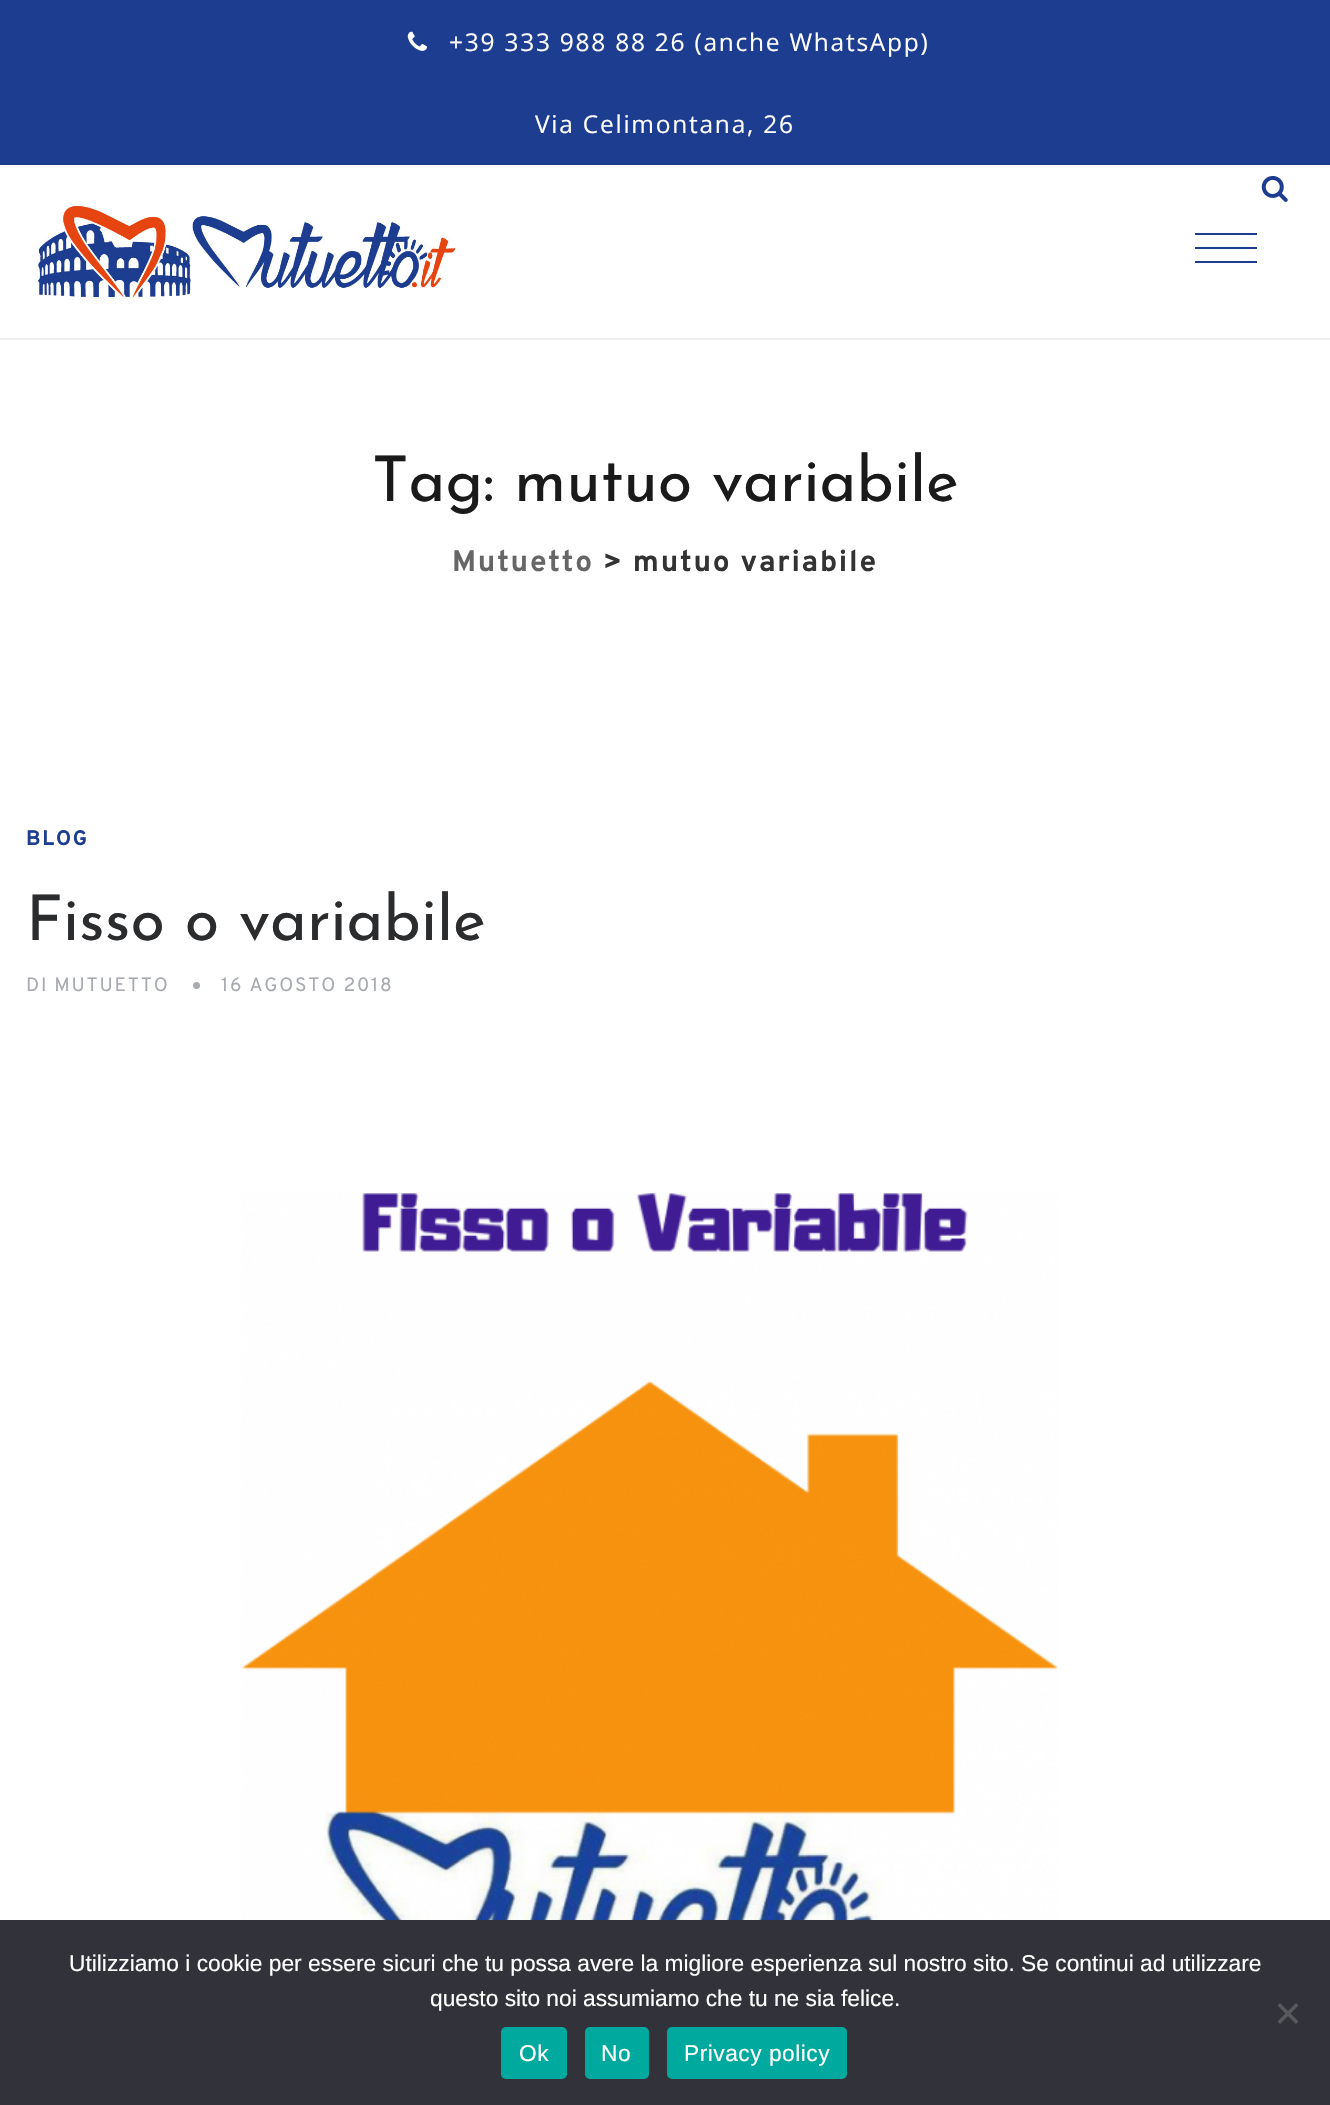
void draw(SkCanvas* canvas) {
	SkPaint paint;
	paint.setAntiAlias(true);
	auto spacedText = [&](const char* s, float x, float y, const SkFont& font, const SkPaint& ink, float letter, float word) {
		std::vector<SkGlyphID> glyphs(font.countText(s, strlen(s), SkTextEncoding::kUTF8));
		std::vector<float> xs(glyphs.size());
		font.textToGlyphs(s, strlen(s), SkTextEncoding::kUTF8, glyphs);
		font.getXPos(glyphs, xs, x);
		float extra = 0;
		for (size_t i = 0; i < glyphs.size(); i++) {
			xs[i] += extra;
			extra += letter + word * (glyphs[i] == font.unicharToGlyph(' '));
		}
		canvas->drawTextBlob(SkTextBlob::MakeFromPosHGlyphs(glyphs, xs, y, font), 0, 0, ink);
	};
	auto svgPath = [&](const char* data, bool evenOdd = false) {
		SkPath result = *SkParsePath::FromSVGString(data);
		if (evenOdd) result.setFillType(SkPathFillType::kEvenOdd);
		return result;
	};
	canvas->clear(0xffffffff);
	paint.setColor(0xff1d3d90);
	canvas->drawRect(SkRect::MakeXYWH(0, 0, 1330, 165), paint);
	canvas->drawImageRect(SkImages::DeferredFromEncodedData(SkData::MakeFromFileName("img1.png")), SkRect::MakeXYWH(407, 31, 20, 20), SkSamplingOptions());
	SkFont f1(fontMgr->matchFamilyStyle("Open Sans", SkFontStyle::Normal()), 24.5);
	f1.setSubpixel(true);
	paint.setColor(0xffffffff);
	spacedText("+39 333 988 88 26 (anche WhatsApp)", 449, 51, f1, paint, 1.75, 0);
	spacedText("Via Celimontana, 26", 535, 133, f1, paint, 1.75, 0);
	canvas->drawImageRect(SkImages::DeferredFromEncodedData(SkData::MakeFromFileName("img2.png")), SkRect::MakeXYWH(35, 204, 421, 96), SkSamplingOptions());
	canvas->drawImageRect(SkImages::DeferredFromEncodedData(SkData::MakeFromFileName("img3.png")), SkRect::MakeXYWH(1261, 175, 27, 27), SkSamplingOptions());
	paint.setColor(0xff1d3d90);
	canvas->drawRect(SkRect::MakeXYWH(1195, 247, 62, 2), paint);
	canvas->drawRect(SkRect::MakeXYWH(1195, 233, 62, 2), paint);
	canvas->drawRect(SkRect::MakeXYWH(1195, 261, 62, 2), paint);
	paint.setColor(0xffeeeeee);
	canvas->drawRect(SkRect::MakeXYWH(0, 338, 1330, 2), paint);
	SkFont f2(fontMgr->matchFamilyStyle("Josefin Sans", SkFontStyle::Normal()), 63);
	f2.setSubpixel(true);
	paint.setColor(0xff1a1a1a);
	canvas->drawString("Tag: mutuo variabile", 372, 501, f2, paint);
	SkFont f3(fontMgr->matchFamilyStyle("Overpass", SkFontStyle::Bold()), 29.75);
	f3.setSubpixel(true);
	paint.setColor(0xff666666);
	spacedText("Mutuetto", 452, 571, f3, paint, 1.75, 0);
	paint.setColor(0xff333333);
	spacedText("> mutuo variabile", 603, 571, f3, paint, 1.75, 0);
	SkFont f4(fontMgr->matchFamilyStyle("Overpass", SkFontStyle::Bold()), 21);
	f4.setSubpixel(true);
	paint.setColor(0xff1d3d90);
	spacedText("BLOG", 26, 845, f4, paint, 1.75, 0);
	paint.setColor(0xff2b2c2e);
	canvas->drawString("Fisso o variabile", 26, 940, f2, paint);
	SkFont f5(fontMgr->matchFamilyStyle("Overpass", SkFontStyle::Normal()), 19.25);
	f5.setSubpixel(true);
	paint.setColor(0xffa8aab2);
	spacedText("DI MUTUETTO", 26, 991, f5, paint, 1.75, 0);
	canvas->drawCircle(196.5, 985.5, 3.5, paint);
	spacedText("16 AGOSTO 2018", 221, 991, f5, paint, 1.75, 0);
	canvas->drawImageRect(SkImages::DeferredFromEncodedData(SkData::MakeFromFileName("img4.png")), SkRect::MakeXYWH(241, 1191, 818, 729), SkSamplingOptions());
	paint.setColor(0xff32323a);
	canvas->drawRect(SkRect::MakeXYWH(0, 1920, 1330, 185), paint);
	SkFont f6(fontMgr->matchFamilyStyle("Liberation Sans", SkFontStyle::Normal()), 22.75);
	f6.setSubpixel(true);
	paint.setColor(0xffffffff);
	canvas->drawString("Utilizziamo i cookie per essere sicuri che tu possa avere la migliore esperienza sul nostro sito. Se continui ad utilizzare", 69, 1971, f6, paint);
	canvas->drawString("questo sito noi assumiamo che tu ne sia felice.", 430, 2006, f6, paint);
	paint.setColor(0xff59595d);
	canvas->drawPath(svgPath("M1296 2003L1298.5 2005.5L1280 2024L1277.5 2021.5Z"), paint);
	canvas->drawPath(svgPath("M1277.5 2005.5L1280 2003L1298.5 2021.5L1296 2024Z"), paint);
	paint.setColor(0xff00a99d);
	canvas->drawRoundRect(SkRect::MakeXYWH(501, 2027, 66, 52), 5, 5, paint);
	paint.setColor(0xffffffff);
	spacedText("Ok", 519, 2061, f6, paint, 0.5, 0);
	paint.setColor(0xff00a99d);
	canvas->drawRoundRect(SkRect::MakeXYWH(585, 2027, 64, 52), 5, 5, paint);
	paint.setColor(0xffffffff);
	spacedText("No", 601, 2061, f6, paint, 0.5, 0);
	paint.setColor(0xff00a99d);
	canvas->drawRoundRect(SkRect::MakeXYWH(667, 2027, 180, 52), 5, 5, paint);
	paint.setColor(0xffffffff);
	spacedText("Privacy policy", 684, 2061, f6, paint, 0.5, 0);
}
